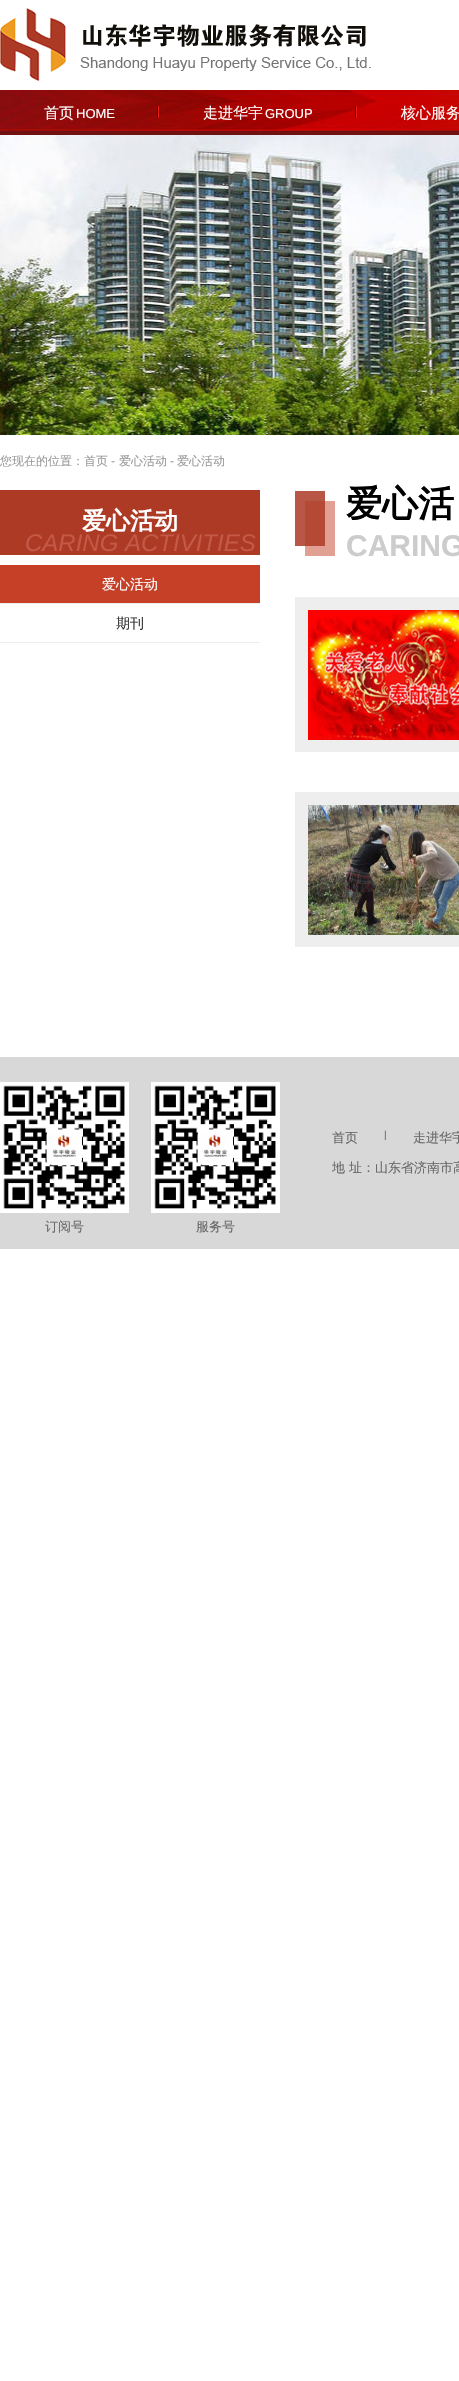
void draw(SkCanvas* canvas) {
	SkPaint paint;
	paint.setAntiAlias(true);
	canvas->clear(0xffffffff);
	canvas->drawImageRect(SkImages::DeferredFromEncodedData(SkData::MakeFromFileName("img1.png")), SkRect::MakeXYWH(0, 8, 371, 73), SkSamplingOptions());
	canvas->drawImageRect(SkImages::DeferredFromEncodedData(SkData::MakeFromFileName("img2.png")), SkRect::MakeXYWH(0, 90, 459, 45), SkSamplingOptions());
	SkFont f1(fontMgr->matchFamilyStyle("WenQuanYi Zen Hei", SkFontStyle(500, SkFontStyle::kNormal_Width, SkFontStyle::kUpright_Slant)), 15);
	f1.setSubpixel(true);
	paint.setColor(0xffffffff);
	canvas->drawString("首页", 44, 118, f1, paint);
	SkFont f2(fontMgr->matchFamilyStyle("Liberation Sans", SkFontStyle::Normal()), 13);
	f2.setSubpixel(true);
	canvas->drawString("HOME", 76, 118, f2, paint);
	canvas->drawImageRect(SkImages::DeferredFromEncodedData(SkData::MakeFromFileName("img3.png")), SkRect::MakeXYWH(157, 106, 2, 12), SkSamplingOptions());
	canvas->drawString("走进华宇", 203, 118, f1, paint);
	canvas->drawString("GROUP", 265, 118, f2, paint);
	canvas->drawImageRect(SkImages::DeferredFromEncodedData(SkData::MakeFromFileName("img3.png")), SkRect::MakeXYWH(355, 106, 2, 12), SkSamplingOptions());
	canvas->drawString("核心服务", 401, 118, f1, paint);
	canvas->drawImageRect(SkImages::DeferredFromEncodedData(SkData::MakeFromFileName("img4.png")), SkRect::MakeXYWH(0, 135, 459, 300), SkSamplingOptions());
	SkFont f3(fontMgr->matchFamilyStyle("WenQuanYi Zen Hei", SkFontStyle(500, SkFontStyle::kNormal_Width, SkFontStyle::kUpright_Slant)), 12);
	f3.setSubpixel(true);
	paint.setColor(0xff999999);
	canvas->drawString("您现在的位置：首页", 0, 465, f3, paint);
	SkFont f4(fontMgr->matchFamilyStyle("Liberation Sans", SkFontStyle::Normal()), 12);
	f4.setSubpixel(true);
	canvas->drawString("-", 111, 465, f4, paint);
	canvas->drawString("爱心活动", 119, 465, f3, paint);
	canvas->drawString("-", 170, 465, f4, paint);
	canvas->drawString("爱心活动", 177, 465, f3, paint);
	paint.setColor(0xffac3a25);
	canvas->drawRect(SkRect::MakeXYWH(0, 490, 260, 65), paint);
	SkFont f5(fontMgr->matchFamilyStyle("WenQuanYi Zen Hei", SkFontStyle::Bold()), 24);
	f5.setSubpixel(true);
	paint.setColor(0xffffffff);
	canvas->drawString("爱心活动", 82, 529, f5, paint);
	SkFont f6(fontMgr->matchFamilyStyle("Liberation Sans", SkFontStyle::Italic()), 24);
	f6.setSubpixel(true);
	paint.setColor(0xffc35946);
	canvas->drawString("CARING ACTIVITIES", 25, 551, f6, paint);
	paint.setColor(0xffc64028);
	canvas->drawRect(SkRect::MakeXYWH(0, 565, 260, 38), paint);
	paint.setColor(0xffeeeeee);
	canvas->drawRect(SkRect::MakeXYWH(0, 603, 260, 1), paint);
	SkFont f7(fontMgr->matchFamilyStyle("WenQuanYi Zen Hei", SkFontStyle(500, SkFontStyle::kNormal_Width, SkFontStyle::kUpright_Slant)), 14);
	f7.setSubpixel(true);
	paint.setColor(0xffffffff);
	canvas->drawString("爱心活动", 102, 589, f7, paint);
	paint.setColor(0xffeeeeee);
	canvas->drawRect(SkRect::MakeXYWH(0, 642, 260, 1), paint);
	paint.setColor(0xff333333);
	canvas->drawString("期刊", 116, 628, f7, paint);
	canvas->drawImageRect(SkImages::DeferredFromEncodedData(SkData::MakeFromFileName("img5.png")), SkRect::MakeXYWH(295, 491, 40, 65), SkSamplingOptions());
	SkFont f8(fontMgr->matchFamilyStyle("WenQuanYi Zen Hei", SkFontStyle::Bold()), 36);
	f8.setSubpixel(true);
	paint.setColor(0xff000000);
	canvas->drawString("爱心活", 346, 516, f8, paint);
	SkFont f9(fontMgr->matchFamilyStyle("Liberation Sans", SkFontStyle::Bold()), 30);
	f9.setSubpixel(true);
	paint.setColor(0xffcccccc);
	canvas->drawString("CARING", 346, 556, f9, paint);
	paint.setColor(0xffeeeeee);
	canvas->drawRect(SkRect::MakeXYWH(295, 597, 164, 155), paint);
	canvas->drawImageRect(SkImages::DeferredFromEncodedData(SkData::MakeFromFileName("img6.png")), SkRect::MakeXYWH(308, 610, 151, 130), SkSamplingOptions());
	canvas->drawRect(SkRect::MakeXYWH(295, 792, 164, 155), paint);
	canvas->drawImageRect(SkImages::DeferredFromEncodedData(SkData::MakeFromFileName("img7.png")), SkRect::MakeXYWH(308, 805, 151, 130), SkSamplingOptions());
	paint.setColor(0xffd8d8d8);
	canvas->drawRect(SkRect::MakeXYWH(0, 1057, 459, 192), paint);
	SkFont f10(fontMgr->matchFamilyStyle("WenQuanYi Zen Hei", SkFontStyle(500, SkFontStyle::kNormal_Width, SkFontStyle::kUpright_Slant)), 13);
	f10.setSubpixel(true);
	paint.setColor(0xff666666);
	canvas->drawString("首页", 332, 1142, f10, paint);
	SkFont f11(fontMgr->matchFamilyStyle("Liberation Sans", SkFontStyle::Normal()), 10);
	f11.setSubpixel(true);
	canvas->drawString("|", 384, 1138, f11, paint);
	canvas->drawString("走进华宇", 413, 1142, f10, paint);
	canvas->drawString("地 址：山东省济南市高", 332, 1172, f10, paint);
	canvas->drawImageRect(SkImages::DeferredFromEncodedData(SkData::MakeFromFileName("img8.png")), SkRect::MakeXYWH(0, 1082, 129, 131), SkSamplingOptions());
	canvas->drawString("订阅号", 45, 1231, f10, paint);
	canvas->drawImageRect(SkImages::DeferredFromEncodedData(SkData::MakeFromFileName("img8.png")), SkRect::MakeXYWH(151, 1082, 129, 131), SkSamplingOptions());
	canvas->drawString("服务号", 196, 1231, f10, paint);
}
